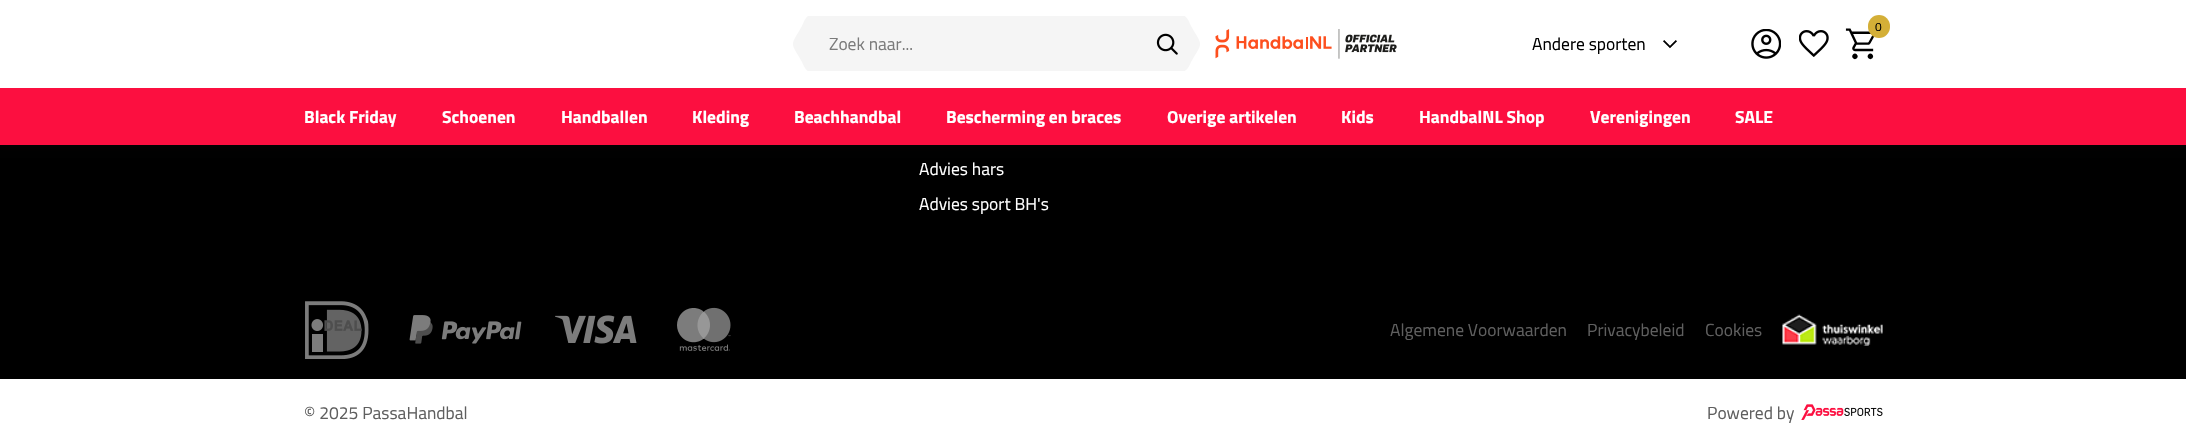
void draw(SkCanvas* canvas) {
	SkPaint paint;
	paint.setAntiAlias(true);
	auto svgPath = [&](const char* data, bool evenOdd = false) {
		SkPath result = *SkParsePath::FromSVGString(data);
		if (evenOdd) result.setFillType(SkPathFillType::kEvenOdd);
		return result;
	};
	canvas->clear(0xffffffff);
	paint.setColor(0xff000000);
	canvas->drawRect(SkRect::MakeXYWH(0, 145, 2186, 234), paint);
	paint.setColor(0x263a0510);
	paint.setMaskFilter(SkMaskFilter::MakeBlur(kNormal_SkBlurStyle, 4));
	canvas->drawRect(SkRect::MakeXYWH(0, 1, 2186, 145), paint);
	paint.setMaskFilter(nullptr);
	paint.setColor(0xffffffff);
	canvas->drawRect(SkRect::MakeXYWH(0, 0, 2186, 88), paint);
	canvas->save();
	canvas->clipRect(SkRect::MakeXYWH(1181, 16, 19, 55));
	paint.setColor(0xfff5f5f5);
	canvas->drawPath(svgPath("M1181 15C1187 15 1189 22 1191 26C1203 47 1203 41 1191 62C1189 66 1187 72 1181 72Z"), paint);
	canvas->restore();
	canvas->save();
	canvas->clipRect(SkRect::MakeXYWH(793, 16, 18, 55));
	canvas->drawPath(svgPath("M811 15C806 15 804 22 802 26C790 47 790 41 802 62C804 66 806 72 811 72Z"), paint);
	canvas->restore();
	canvas->drawRect(SkRect::MakeXYWH(811, 16, 370, 55), paint);
	SkFont f1(fontMgr->matchFamilyStyle("Titillium Web", SkFontStyle::Normal()), 17.5);
	f1.setSubpixel(true);
	paint.setColor(0xff7b7b7b);
	canvas->drawString("Zoek naar...", 829, 50, f1, paint);
	canvas->drawImageRect(SkImages::DeferredFromEncodedData(SkData::MakeFromFileName("img1.png")), SkRect::MakeXYWH(1156, 33, 22, 22), SkSamplingOptions());
	canvas->drawImageRect(SkImages::DeferredFromEncodedData(SkData::MakeFromFileName("img2.png")), SkRect::MakeXYWH(1215, 29, 182, 30), SkSamplingOptions());
	canvas->drawImageRect(SkImages::DeferredFromEncodedData(SkData::MakeFromFileName("img3.png")), SkRect::MakeXYWH(1845, 28, 30, 32), SkSamplingOptions());
	paint.setColor(0xffd4af37);
	canvas->drawRoundRect(SkRect::MakeXYWH(1868, 15, 22, 23), 11, 11, paint);
	SkFont f2(fontMgr->matchFamilyStyle("Titillium Web", SkFontStyle::Normal()), 12);
	f2.setSubpixel(true);
	paint.setColor(0xff000000);
	canvas->drawString("0", 1875, 31, f2, paint);
	canvas->drawImageRect(SkImages::DeferredFromEncodedData(SkData::MakeFromFileName("img4.png")), SkRect::MakeXYWH(1751, 29, 30, 30), SkSamplingOptions());
	canvas->drawImageRect(SkImages::DeferredFromEncodedData(SkData::MakeFromFileName("img5.png")), SkRect::MakeXYWH(1799, 30, 30, 27), SkSamplingOptions());
	canvas->drawImageRect(SkImages::DeferredFromEncodedData(SkData::MakeFromFileName("img6.png")), SkRect::MakeXYWH(1663, 40, 14, 9), SkSamplingOptions());
	canvas->drawString("Andere sporten", 1532, 50, f1, paint);
	paint.setColor(0xfffc0f40);
	canvas->drawRect(SkRect::MakeXYWH(0, 88, 2186, 57), paint);
	SkFont f3(fontMgr->matchFamilyStyle("Titillium Web", SkFontStyle::Bold()), 17.5);
	f3.setSubpixel(true);
	paint.setColor(0xffffffff);
	canvas->drawString("Black Friday", 304, 123, f3, paint);
	canvas->drawString("Schoenen", 442, 123, f3, paint);
	canvas->drawString("Handballen", 561, 123, f3, paint);
	canvas->drawString("Kleding", 692, 123, f3, paint);
	canvas->drawString("Beachhandbal", 794, 123, f3, paint);
	canvas->drawString("Bescherming en braces", 946, 123, f3, paint);
	canvas->drawString("Overige artikelen", 1167, 123, f3, paint);
	canvas->drawString("Kids", 1341, 123, f3, paint);
	canvas->drawString("HandbalNL Shop", 1419, 123, f3, paint);
	canvas->drawString("Verenigingen", 1590, 123, f3, paint);
	canvas->drawString("SALE", 1735, 123, f3, paint);
	canvas->drawString("Advies hars", 919, 175, f1, paint);
	canvas->drawString("Advies sport BH's", 919, 210, f1, paint);
	canvas->drawImageRect(SkImages::DeferredFromEncodedData(SkData::MakeFromFileName("img7.png")), SkRect::MakeXYWH(305, 301, 426, 58), SkSamplingOptions());
	paint.setColor(0xff5f5f5f);
	canvas->drawString("Algemene Voorwaarden", 1390, 336, f1, paint);
	canvas->drawString("Privacybeleid", 1587, 336, f1, paint);
	canvas->drawString("Cookies", 1705, 336, f1, paint);
	canvas->drawImageRect(SkImages::DeferredFromEncodedData(SkData::MakeFromFileName("img8.png")), SkRect::MakeXYWH(1782, 314, 101, 32), SkSamplingOptions());
	canvas->drawString("© 2025 PassaHandbal", 304, 419, f1, paint);
	canvas->drawString("Powered by", 1707, 419, f1, paint);
	canvas->drawImageRect(SkImages::DeferredFromEncodedData(SkData::MakeFromFileName("img9.png")), SkRect::MakeXYWH(1801, 404, 82, 16), SkSamplingOptions());
}
